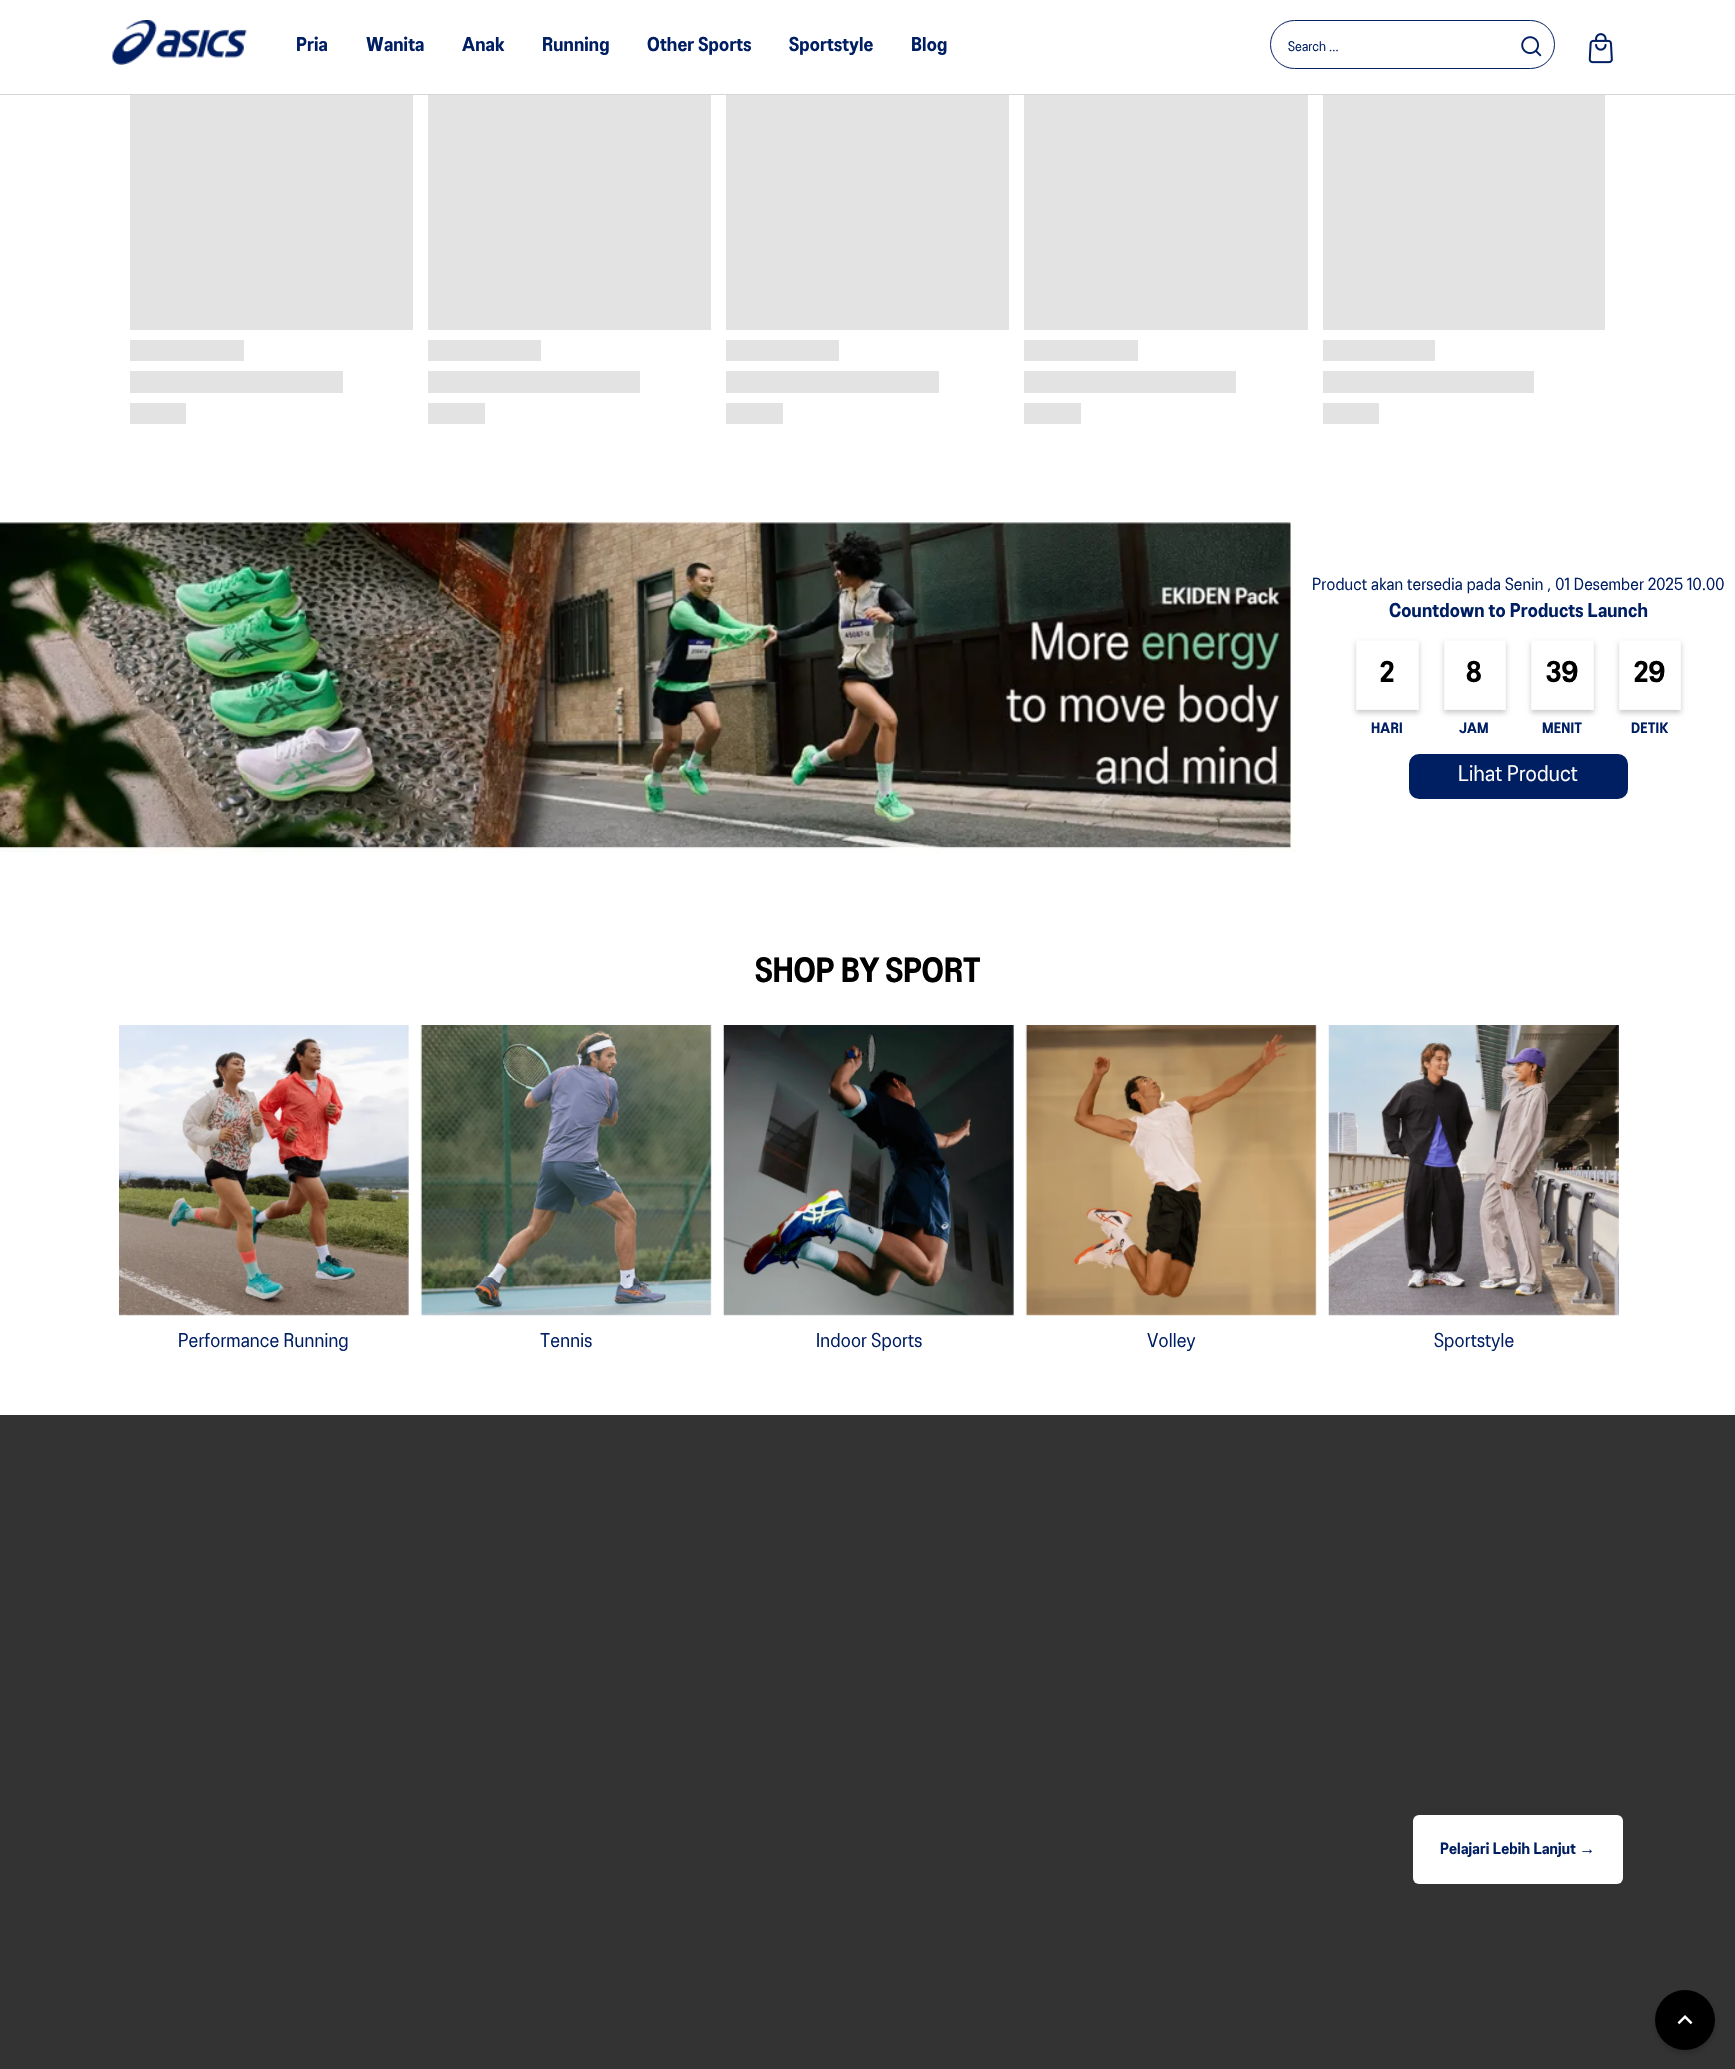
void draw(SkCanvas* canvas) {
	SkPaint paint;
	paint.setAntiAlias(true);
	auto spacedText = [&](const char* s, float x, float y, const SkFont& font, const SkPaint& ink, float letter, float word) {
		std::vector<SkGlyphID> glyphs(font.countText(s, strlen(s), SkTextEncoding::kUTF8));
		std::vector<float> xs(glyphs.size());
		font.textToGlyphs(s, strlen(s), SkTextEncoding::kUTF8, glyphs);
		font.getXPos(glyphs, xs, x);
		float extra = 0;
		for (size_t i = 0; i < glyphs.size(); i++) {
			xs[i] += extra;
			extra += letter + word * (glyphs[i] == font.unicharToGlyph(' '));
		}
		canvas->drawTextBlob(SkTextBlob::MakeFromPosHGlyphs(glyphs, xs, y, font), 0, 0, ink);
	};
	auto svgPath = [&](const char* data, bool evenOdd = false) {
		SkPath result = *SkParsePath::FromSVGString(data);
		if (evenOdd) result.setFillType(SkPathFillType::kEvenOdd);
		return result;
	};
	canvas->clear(0xffffffff);
	paint.setColor(0xffd6d6d6);
	canvas->drawRect(SkRect::MakeXYWH(0, 94, 1735, 1), paint);
	canvas->drawImageRect(SkImages::DeferredFromEncodedData(SkData::MakeFromFileName("img1.png")), SkRect::MakeXYWH(112, 20, 135, 45), SkSamplingOptions());
	SkFont f1(fontMgr->matchFamilyStyle("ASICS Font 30", SkFontStyle::Bold()), 20);
	f1.setSubpixel(true);
	paint.setColor(0xff001e62);
	spacedText("Pria", 296, 51, f1, paint, 0.2, 0);
	spacedText("Wanita", 366, 51, f1, paint, 0.2, 0);
	spacedText("Anak", 462, 51, f1, paint, 0.2, 0);
	spacedText("Running", 542, 51, f1, paint, 0.2, 0);
	spacedText("Other Sports", 647, 51, f1, paint, 0.2, 0);
	spacedText("Sportstyle", 789, 51, f1, paint, 0.2, 0);
	spacedText("Blog", 911, 51, f1, paint, 0.2, 0);
	paint.setStroke(true);
	paint.setStrokeWidth(1);
	canvas->drawRoundRect(SkRect::MakeXYWH(1270.5, 20.5, 284, 48), 24, 24, paint);
	SkFont f2(fontMgr->matchFamilyStyle("ASICS Font 30", SkFontStyle::Normal()), 14);
	f2.setSubpixel(true);
	paint.setStroke(false);
	spacedText("Search ...", 1288, 51, f2, paint, 0.1, 0);
	canvas->drawImageRect(SkImages::DeferredFromEncodedData(SkData::MakeFromFileName("img2.png")), SkRect::MakeXYWH(1521, 36, 21, 21), SkSamplingOptions());
	canvas->drawImageRect(SkImages::DeferredFromEncodedData(SkData::MakeFromFileName("img3.png")), SkRect::MakeXYWH(1588, 33, 25, 31), SkSamplingOptions());
	paint.setColor(0xffe3e3e3);
	canvas->drawRect(SkRect::MakeXYWH(130, 95, 283, 235), paint);
	canvas->drawRect(SkRect::MakeXYWH(130, 340, 114, 21), paint);
	canvas->drawRect(SkRect::MakeXYWH(130, 371, 213, 22), paint);
	canvas->drawRect(SkRect::MakeXYWH(130, 403, 56, 21), paint);
	canvas->drawRect(SkRect::MakeXYWH(428, 95, 283, 235), paint);
	canvas->drawRect(SkRect::MakeXYWH(428, 340, 113, 21), paint);
	canvas->drawRect(SkRect::MakeXYWH(428, 371, 212, 22), paint);
	canvas->drawRect(SkRect::MakeXYWH(428, 403, 57, 21), paint);
	canvas->drawRect(SkRect::MakeXYWH(726, 95, 283, 235), paint);
	canvas->drawRect(SkRect::MakeXYWH(726, 340, 113, 21), paint);
	canvas->drawRect(SkRect::MakeXYWH(726, 371, 213, 22), paint);
	canvas->drawRect(SkRect::MakeXYWH(726, 403, 57, 21), paint);
	canvas->drawRect(SkRect::MakeXYWH(1024, 95, 284, 235), paint);
	canvas->drawRect(SkRect::MakeXYWH(1024, 340, 114, 21), paint);
	canvas->drawRect(SkRect::MakeXYWH(1024, 371, 212, 22), paint);
	canvas->drawRect(SkRect::MakeXYWH(1024, 403, 57, 21), paint);
	canvas->drawRect(SkRect::MakeXYWH(1323, 95, 282, 235), paint);
	canvas->drawRect(SkRect::MakeXYWH(1323, 340, 112, 21), paint);
	canvas->drawRect(SkRect::MakeXYWH(1323, 371, 211, 22), paint);
	canvas->drawRect(SkRect::MakeXYWH(1323, 403, 56, 21), paint);
	canvas->drawImageRect(SkImages::DeferredFromEncodedData(SkData::MakeFromFileName("img4.png")), SkRect::MakeXYWH(0, 519, 1296, 336), SkSamplingOptions());
	SkFont f3(fontMgr->matchFamilyStyle("ASICS Font 30", SkFontStyle::Normal()), 17.5);
	f3.setSubpixel(true);
	paint.setColor(0xff001e62);
	spacedText("Product akan tersedia pada Senin , 01 Desember 2025 10.00", 1312, 590, f3, paint, 0.2, 0);
	spacedText("Countdown to Products Launch", 1389, 617, f1, paint, 0.2, 0);
	paint.setColor(0x33000000);
	paint.setMaskFilter(SkMaskFilter::MakeBlur(kNormal_SkBlurStyle, 2.5));
	canvas->drawRect(SkRect::MakeXYWH(1356, 643, 63, 70), paint);
	paint.setMaskFilter(nullptr);
	paint.setColor(0xffffffff);
	canvas->drawRect(SkRect::MakeXYWH(1356.5, 640.5, 62, 69), paint);
	paint.setStroke(true);
	paint.setColor(0xfffafafa);
	canvas->drawRect(SkRect::MakeXYWH(1356.5, 640.5, 62, 69), paint);
	SkFont f4(fontMgr->matchFamilyStyle("ASICS Font 30", SkFontStyle::Bold()), 30);
	f4.setSubpixel(true);
	paint.setStroke(false);
	paint.setColor(0xff000000);
	spacedText("2", 1380, 682, f4, paint, 0.2, 0);
	SkFont f5(fontMgr->matchFamilyStyle("ASICS Font 30", SkFontStyle::Bold()), 15);
	f5.setSubpixel(true);
	paint.setColor(0xff001e62);
	spacedText("HARI", 1371, 733, f5, paint, 0.2, 0);
	canvas->save();
	canvas->clipPath(svgPath("M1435 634H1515V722H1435ZM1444 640H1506V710H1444Z", true), true);
	paint.setColor(0x33000000);
	paint.setMaskFilter(SkMaskFilter::MakeBlur(kNormal_SkBlurStyle, 2.5));
	canvas->drawRect(SkRect::MakeXYWH(1444, 643, 62, 70), paint);
	paint.setMaskFilter(nullptr);
	canvas->restore();
	paint.setStroke(true);
	paint.setColor(0xfffafafa);
	canvas->drawRect(SkRect::MakeXYWH(1444.5, 640.5, 61, 69), paint);
	paint.setStroke(false);
	paint.setColor(0xff000000);
	spacedText("8", 1466, 682, f4, paint, 0.2, 0);
	paint.setColor(0xff001e62);
	spacedText("JAM", 1459, 733, f5, paint, 0.2, 0);
	paint.setColor(0x33000000);
	paint.setMaskFilter(SkMaskFilter::MakeBlur(kNormal_SkBlurStyle, 2.5));
	canvas->drawRect(SkRect::MakeXYWH(1531, 643, 63, 70), paint);
	paint.setMaskFilter(nullptr);
	paint.setColor(0xffffffff);
	canvas->drawRect(SkRect::MakeXYWH(1531.5, 640.5, 62, 69), paint);
	paint.setStroke(true);
	paint.setColor(0xfffafafa);
	canvas->drawRect(SkRect::MakeXYWH(1531.5, 640.5, 62, 69), paint);
	paint.setStroke(false);
	paint.setColor(0xff000000);
	spacedText("39", 1546, 682, f4, paint, 0.2, 0);
	paint.setColor(0xff001e62);
	spacedText("MENIT", 1542, 733, f5, paint, 0.2, 0);
	canvas->save();
	canvas->clipPath(svgPath("M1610 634H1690V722H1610ZM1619 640H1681V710H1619Z", true), true);
	paint.setColor(0x33000000);
	paint.setMaskFilter(SkMaskFilter::MakeBlur(kNormal_SkBlurStyle, 2.5));
	canvas->drawRect(SkRect::MakeXYWH(1619, 643, 62, 70), paint);
	paint.setMaskFilter(nullptr);
	canvas->restore();
	paint.setStroke(true);
	paint.setColor(0xfffafafa);
	canvas->drawRect(SkRect::MakeXYWH(1619.5, 640.5, 61, 69), paint);
	paint.setStroke(false);
	paint.setColor(0xff000000);
	spacedText("29", 1634, 682, f4, paint, 0.2, 0);
	paint.setColor(0xff001e62);
	spacedText("DETIK", 1631, 733, f5, paint, 0.2, 0);
	canvas->drawRoundRect(SkRect::MakeXYWH(1409, 754, 219, 45), 10, 10, paint);
	SkFont f6(fontMgr->matchFamilyStyle("ASICS Font 30", SkFontStyle::Normal()), 22.5);
	f6.setSubpixel(true);
	paint.setColor(0xffffffff);
	spacedText("Lihat Product", 1458, 781, f6, paint, 0.2, 0);
	SkFont f7(fontMgr->matchFamilyStyle("ASICS Font 30", SkFontStyle::Bold()), 35);
	f7.setSubpixel(true);
	paint.setColor(0xff000000);
	spacedText("SHOP BY SPORT", 755, 982, f7, paint, -0.25, 0);
	canvas->drawImageRect(SkImages::DeferredFromEncodedData(SkData::MakeFromFileName("img5.png")), SkRect::MakeXYWH(119, 1025, 290, 291), SkSamplingOptions());
	SkFont f8(fontMgr->matchFamilyStyle("ASICS Font 30", SkFontStyle::Normal()), 20);
	f8.setSubpixel(true);
	paint.setColor(0xff001e62);
	spacedText("Performance Running", 178, 1347, f8, paint, 0.2, 0);
	canvas->drawImageRect(SkImages::DeferredFromEncodedData(SkData::MakeFromFileName("img6.png")), SkRect::MakeXYWH(420, 1025, 292, 291), SkSamplingOptions());
	spacedText("Tennis", 540, 1347, f8, paint, 0.2, 0);
	canvas->drawImageRect(SkImages::DeferredFromEncodedData(SkData::MakeFromFileName("img7.png")), SkRect::MakeXYWH(723, 1025, 291, 291), SkSamplingOptions());
	spacedText("Indoor Sports", 816, 1347, f8, paint, 0.2, 0);
	canvas->drawImageRect(SkImages::DeferredFromEncodedData(SkData::MakeFromFileName("img8.png")), SkRect::MakeXYWH(1025, 1025, 292, 291), SkSamplingOptions());
	spacedText("Volley", 1147, 1347, f8, paint, 0.2, 0);
	canvas->drawImageRect(SkImages::DeferredFromEncodedData(SkData::MakeFromFileName("img9.png")), SkRect::MakeXYWH(1328, 1025, 291, 291), SkSamplingOptions());
	spacedText("Sportstyle", 1434, 1347, f8, paint, 0.2, 0);
	paint.setColor(0xff333333);
	canvas->drawRect(SkRect::MakeXYWH(0, 1415, 1735, 654), paint);
	paint.setColor(0xffffffff);
	canvas->drawRoundRect(SkRect::MakeXYWH(1413, 1815, 210, 69), 6, 6, paint);
	SkFont f9(fontMgr->matchFamilyStyle("ASICS Font 30", SkFontStyle::Bold()), 16.25);
	f9.setSubpixel(true);
	paint.setColor(0xff001e62);
	spacedText("Pelajari Lebih Lanjut", 1440, 1854, f9, paint, 0.2, 0);
	SkFont f10(fontMgr->matchFamilyStyle("Liberation Sans", SkFontStyle::Bold()), 16.25);
	f10.setSubpixel(true);
	spacedText("→", 1579, 1854, f10, paint, 0.2, 0);
	paint.setColor(0x33000000);
	paint.setMaskFilter(SkMaskFilter::MakeBlur(kNormal_SkBlurStyle, 3));
	canvas->drawRoundRect(SkRect::MakeXYWH(1656, 1995, 58, 58), 29, 29, paint);
	paint.setMaskFilter(nullptr);
	paint.setColor(0xff000000);
	canvas->drawCircle(1685, 2020, 30, paint);
	canvas->drawImageRect(SkImages::DeferredFromEncodedData(SkData::MakeFromFileName("img10.png")), SkRect::MakeXYWH(1677, 2015, 16, 10), SkSamplingOptions());
}
